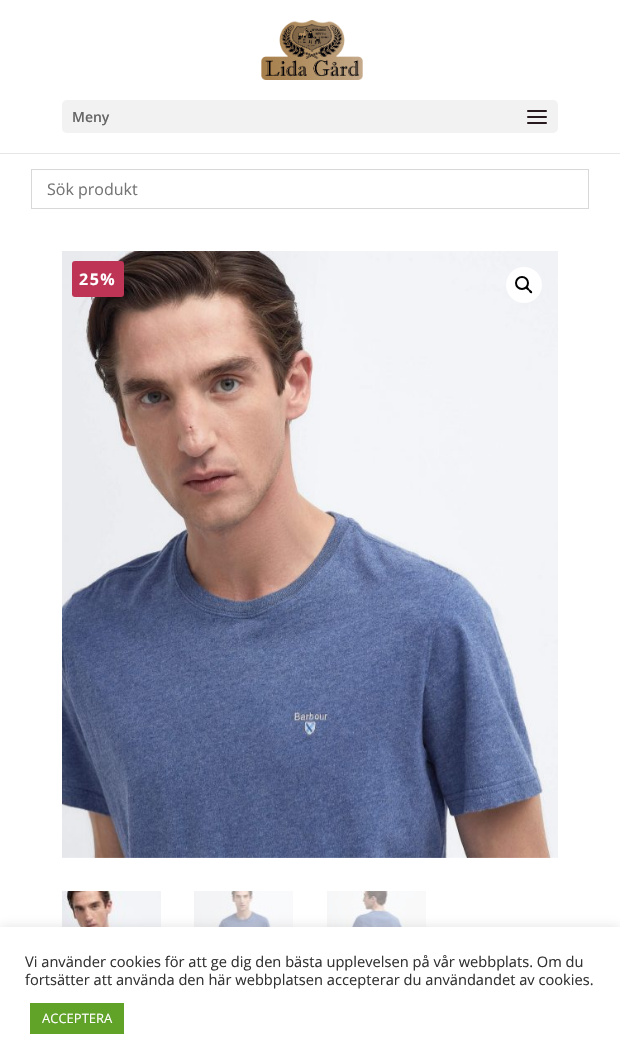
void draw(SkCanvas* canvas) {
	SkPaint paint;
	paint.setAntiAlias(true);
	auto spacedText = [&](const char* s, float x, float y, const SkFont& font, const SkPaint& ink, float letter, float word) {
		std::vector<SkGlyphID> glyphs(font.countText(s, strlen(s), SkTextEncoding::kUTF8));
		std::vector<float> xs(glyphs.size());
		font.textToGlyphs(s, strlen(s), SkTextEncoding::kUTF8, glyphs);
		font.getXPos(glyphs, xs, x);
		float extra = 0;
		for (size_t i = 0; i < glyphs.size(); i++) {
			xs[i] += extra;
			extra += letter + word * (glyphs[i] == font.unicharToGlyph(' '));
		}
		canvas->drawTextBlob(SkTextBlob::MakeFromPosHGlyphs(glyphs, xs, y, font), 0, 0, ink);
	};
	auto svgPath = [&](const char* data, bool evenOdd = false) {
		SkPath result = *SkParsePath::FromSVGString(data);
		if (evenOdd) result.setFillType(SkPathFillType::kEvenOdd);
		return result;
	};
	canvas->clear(0xffffffff);
	paint.setColor(0xffe6e6e6);
	canvas->drawRect(SkRect::MakeXYWH(0, 153, 620, 1), paint);
	canvas->drawImageRect(SkImages::DeferredFromEncodedData(SkData::MakeFromFileName("img1.png")), SkRect::MakeXYWH(261, 20, 102, 60), SkSamplingOptions());
	paint.setColor(0xfff2f2f2);
	canvas->drawRoundRect(SkRect::MakeXYWH(62, 100, 496, 33), 5, 5, paint);
	SkFont f1(fontMgr->matchFamilyStyle("Open Sans", SkFontStyle(600, SkFontStyle::kNormal_Width, SkFontStyle::kUpright_Slant)), 14);
	f1.setSubpixel(true);
	paint.setColor(0xff666666);
	canvas->drawString("Meny", 72, 122, f1, paint);
	canvas->drawImageRect(SkImages::DeferredFromEncodedData(SkData::MakeFromFileName("img2.png")), SkRect::MakeXYWH(527, 110, 20, 14), SkSamplingOptions());
	paint.setStroke(true);
	paint.setStrokeWidth(1);
	paint.setColor(0xffd8d8d8);
	canvas->drawRect(SkRect::MakeXYWH(31.5, 169.5, 557, 39), paint);
	SkFont f2(fontMgr->matchFamilyStyle("Open Sans", SkFontStyle::Normal()), 16);
	f2.setSubpixel(true);
	paint.setStroke(false);
	paint.setColor(0xff757575);
	canvas->drawString("Sök produkt", 47, 195, f2, paint);
	canvas->drawImageRect(SkImages::DeferredFromEncodedData(SkData::MakeFromFileName("img3.png")), SkRect::MakeXYWH(62, 251, 496, 607), SkSamplingOptions());
	paint.setColor(0xffffffff);
	canvas->drawCircle(524, 285, 18, paint);
	paint.setStroke(true);
	paint.setStrokeWidth(2);
	paint.setColor(0xff000000);
	canvas->drawCircle(522, 283, 6, paint);
	paint.setStroke(false);
	canvas->drawPath(svgPath("M526 287C527.5 286 529 288.5 529.5 289.5C530.5 290 533 291.5 532 293C530.5 294 529 291.5 528.5 290.5C527.5 290 525 288.5 526 287Z"), paint);
	canvas->drawImageRect(SkImages::DeferredFromEncodedData(SkData::MakeFromFileName("img4.png")), SkRect::MakeXYWH(62, 891, 99, 36), SkSamplingOptions());
	canvas->drawImageRect(SkImages::DeferredFromEncodedData(SkData::MakeFromFileName("img5.png")), SkRect::MakeXYWH(194, 891, 99, 36), SkSamplingOptions());
	canvas->drawImageRect(SkImages::DeferredFromEncodedData(SkData::MakeFromFileName("img6.png")), SkRect::MakeXYWH(327, 891, 99, 36), SkSamplingOptions());
	paint.setColor(0xffbe3455);
	canvas->drawRoundRect(SkRect::MakeXYWH(72, 261, 52, 36), 3, 3, paint);
	SkFont f3(fontMgr->matchFamilyStyle("Open Sans", SkFontStyle::Bold()), 16);
	f3.setSubpixel(true);
	paint.setColor(0xffffffff);
	spacedText("25%", 79, 285, f3, paint, 1.5, 0);
	paint.setColor(0x4dacabab);
	paint.setMaskFilter(SkMaskFilter::MakeBlur(kNormal_SkBlurStyle, 5));
	canvas->drawRect(SkRect::MakeXYWH(0, 926, 620, 137), paint);
	paint.setMaskFilter(nullptr);
	paint.setColor(0xffffffff);
	canvas->drawRect(SkRect::MakeXYWH(0, 927, 620, 137), paint);
	SkFont f4(fontMgr->matchFamilyStyle("Open Sans", SkFontStyle::Normal()), 14.65);
	f4.setSubpixel(true);
	paint.setColor(0xff333333);
	canvas->drawString("Vi använder cookies för att ge dig den bästa upplevelsen på vår webbplats. Om du", 25, 967, f4, paint);
	canvas->drawString("fortsätter att använda den här webbplatsen accepterar du användandet av cookies.", 25, 985, f4, paint);
	paint.setColor(0xff61a229);
	canvas->drawRect(SkRect::MakeXYWH(30, 1003, 94, 31), paint);
	SkFont f5(fontMgr->matchFamilyStyle("Open Sans", SkFontStyle::Normal()), 13);
	f5.setSubpixel(true);
	paint.setColor(0xffffffff);
	canvas->drawString("ACCEPTERA", 42, 1023, f5, paint);
}
